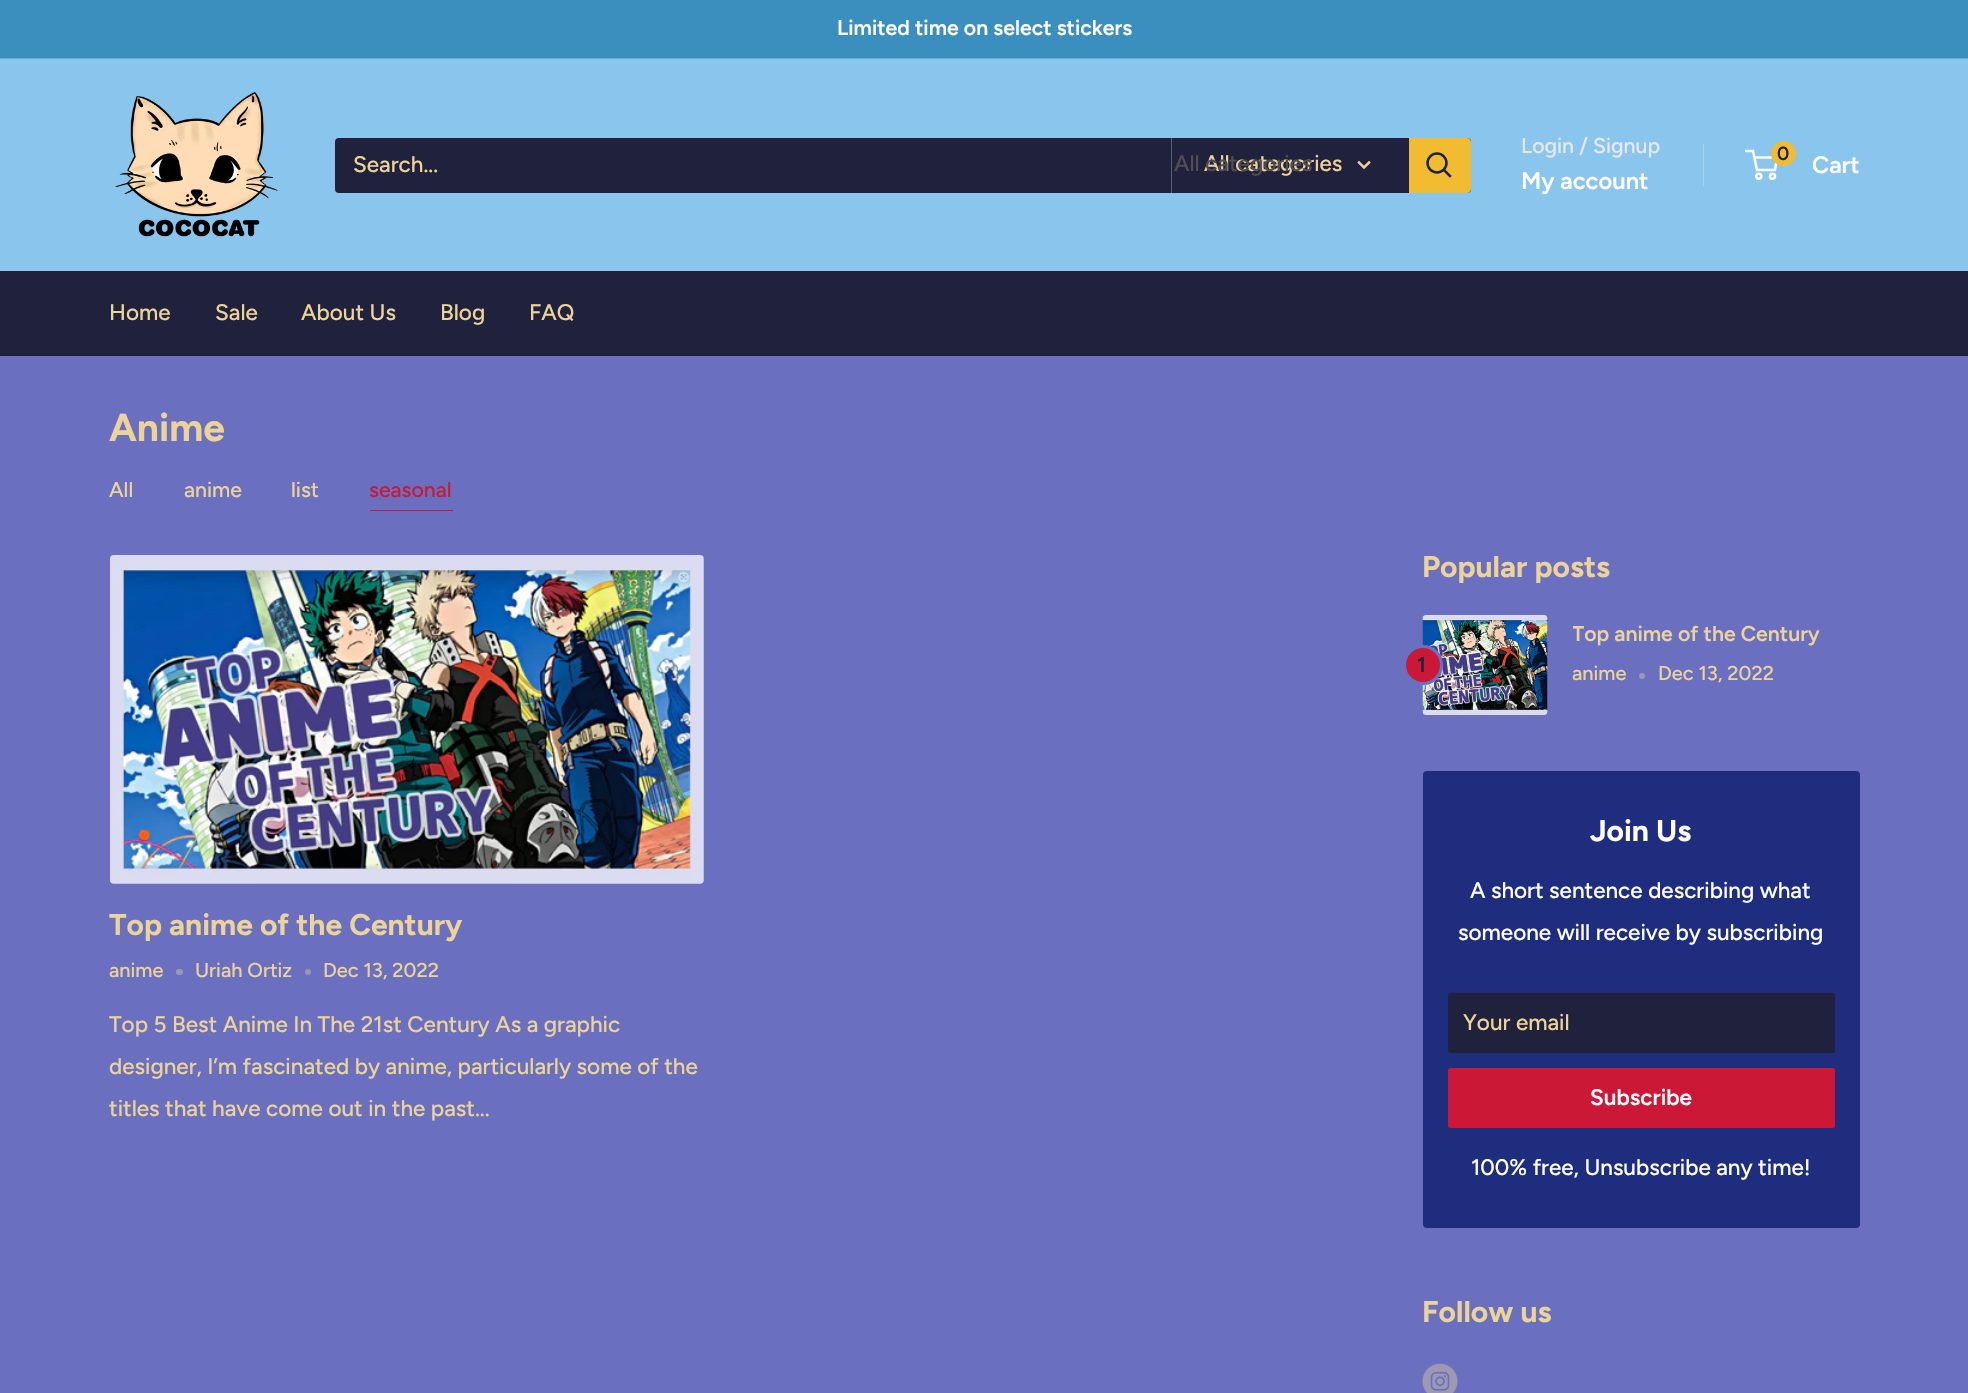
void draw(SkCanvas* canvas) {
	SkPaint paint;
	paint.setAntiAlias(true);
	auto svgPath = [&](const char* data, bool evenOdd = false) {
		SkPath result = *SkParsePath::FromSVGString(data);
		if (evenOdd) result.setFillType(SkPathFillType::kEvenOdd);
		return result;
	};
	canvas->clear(0xff6a70bf);
	paint.setColor(0xff3b8fbe);
	canvas->drawRect(SkRect::MakeXYWH(0, 0, 1968, 58), paint);
	paint.setColor(0xff6faacb);
	canvas->drawRect(SkRect::MakeXYWH(0, 58, 1968, 1), paint);
	SkFont f1(fontMgr->matchFamilyStyle("Figtree", SkFontStyle(600, SkFontStyle::kNormal_Width, SkFontStyle::kUpright_Slant)), 21.25);
	f1.setSubpixel(true);
	paint.setColor(0xffffffff);
	canvas->drawString("Limited time on select stickers", 837, 35, f1, paint);
	paint.setColor(0xff89c5ed);
	canvas->drawRect(SkRect::MakeXYWH(0, 59, 1968, 212), paint);
	canvas->drawImageRect(SkImages::DeferredFromEncodedData(SkData::MakeFromFileName("img1.png")), SkRect::MakeXYWH(115, 92, 163, 145), SkSamplingOptions());
	paint.setColor(0xff1f213d);
	canvas->drawRoundRect(SkRect::MakeXYWH(335, 138, 1136, 55), 4, 4, paint);
	SkFont f2(fontMgr->matchFamilyStyle("Figtree", SkFontStyle(500, SkFontStyle::kNormal_Width, SkFontStyle::kUpright_Slant)), 22.5);
	f2.setSubpixel(true);
	paint.setColor(0xffecd498);
	canvas->drawString("Search...", 353, 172, f2, paint);
	paint.setColor(0xff5b5d70);
	canvas->drawRect(SkRect::MakeXYWH(1171, 138, 1, 55), paint);
	paint.setColor(0xffecd498);
	canvas->drawString("All categories", 1204, 171, f2, paint);
	paint.setColor(0xff514d53);
	canvas->drawString("All categories", 1174, 171, f2, paint);
	paint.setStroke(true);
	paint.setStrokeWidth(2.5);
	paint.setStrokeCap(SkPaint::kSquare_Cap);
	paint.setColor(0xffecd498);
	canvas->drawPath(svgPath("M1369 162.5L1364 167.5L1359 162.5"), paint);
	paint.setStroke(false);
	paint.setColor(0xfff2bc32);
	canvas->drawPath(svgPath("M1409 138H1467C1469 138 1471 140 1471 142V189C1471 191 1469 193 1467 193H1409Z"), paint);
	paint.setStroke(true);
	paint.setColor(0xff1f213d);
	canvas->drawPath(svgPath("M1450 176L1444 170"), paint);
	paint.setStrokeCap(SkPaint::kButt_Cap);
	canvas->drawCircle(1437, 163, 9.5, paint);
	SkFont f3(fontMgr->matchFamilyStyle("Figtree", SkFontStyle(500, SkFontStyle::kNormal_Width, SkFontStyle::kUpright_Slant)), 21.25);
	f3.setSubpixel(true);
	paint.setStroke(false);
	paint.setColor(0xffe8e8e8);
	canvas->drawString("Login / Signup", 1521, 153, f3, paint);
	paint.setColor(0xffa6d0ec);
	canvas->drawRect(SkRect::MakeXYWH(1703, 144, 1, 42), paint);
	SkFont f4(fontMgr->matchFamilyStyle("Figtree", SkFontStyle(600, SkFontStyle::kNormal_Width, SkFontStyle::kUpright_Slant)), 23.75);
	f4.setSubpixel(true);
	paint.setColor(0xffffffff);
	canvas->drawString("My account", 1521, 189, f4, paint);
	paint.setStroke(true);
	canvas->drawCircle(1758.8, 176.2, 2.5, paint);
	canvas->drawCircle(1772.5, 176.2, 2.5, paint);
	canvas->drawPath(svgPath("M1754 157.5H1777L1775 170H1757L1753 151H1745"), paint);
	paint.setStroke(false);
	paint.setColor(0xfff2bc32);
	canvas->drawCircle(1783.5, 153.5, 12.5, paint);
	SkFont f5(fontMgr->matchFamilyStyle("Figtree", SkFontStyle(600, SkFontStyle::kNormal_Width, SkFontStyle::kUpright_Slant)), 19);
	f5.setSubpixel(true);
	paint.setColor(0xff1f213d);
	canvas->drawString("0", 1777, 160, f5, paint);
	paint.setColor(0xffffffff);
	canvas->drawString("Cart", 1812, 173, f4, paint);
	paint.setColor(0xff1f213d);
	canvas->drawRect(SkRect::MakeXYWH(0, 271, 1968, 84), paint);
	paint.setColor(0xff1b1d39);
	canvas->drawRect(SkRect::MakeXYWH(0, 355, 1968, 1), paint);
	paint.setColor(0xffecd498);
	canvas->drawString("Home", 109, 320, f2, paint);
	canvas->drawString("Sale", 215, 320, f2, paint);
	canvas->drawString("About Us", 301, 320, f2, paint);
	canvas->drawString("Blog", 440, 320, f2, paint);
	canvas->drawString("FAQ", 529, 320, f2, paint);
	SkFont f6(fontMgr->matchFamilyStyle("Figtree", SkFontStyle::Bold()), 39);
	f6.setSubpixel(true);
	canvas->drawString("Anime", 109, 441, f6, paint);
	canvas->drawString("All", 109, 497, f3, paint);
	canvas->drawString("anime", 184, 497, f3, paint);
	canvas->drawString("list", 291, 497, f3, paint);
	paint.setColor(0xffcb1836);
	canvas->drawString("seasonal", 369, 497, f3, paint);
	canvas->drawRect(SkRect::MakeXYWH(370, 510, 83, 1), paint);
	canvas->drawImageRect(SkImages::DeferredFromEncodedData(SkData::MakeFromFileName("img2.png")), SkRect::MakeXYWH(110, 555, 594, 329), SkSamplingOptions());
	SkFont f7(fontMgr->matchFamilyStyle("Figtree", SkFontStyle::Bold()), 30);
	f7.setSubpixel(true);
	paint.setColor(0xffecd498);
	canvas->drawString("Top anime of the Century", 109, 935, f7, paint);
	SkFont f8(fontMgr->matchFamilyStyle("Figtree", SkFontStyle(500, SkFontStyle::kNormal_Width, SkFontStyle::kUpright_Slant)), 20);
	f8.setSubpixel(true);
	canvas->drawString("anime", 109, 977, f8, paint);
	paint.setColor(0xff9e98af);
	canvas->drawRoundRect(SkRect::MakeXYWH(176, 969, 7, 6), 3, 3, paint);
	paint.setColor(0xffecd498);
	canvas->drawString("Uriah Ortiz", 195, 977, f8, paint);
	paint.setColor(0xff9e98af);
	canvas->drawCircle(308, 972, 3, paint);
	paint.setColor(0xffecd498);
	canvas->drawString("Dec 13, 2022", 323, 977, f8, paint);
	canvas->drawString("Top 5 Best Anime In The 21st Century As a graphic", 109, 1032, f2, paint);
	canvas->drawString("designer, I’m fascinated by anime, particularly some of the", 109, 1074, f2, paint);
	canvas->drawString("titles that have come out in the past...", 109, 1116, f2, paint);
	canvas->drawString("Popular posts", 1422, 577, f7, paint);
	canvas->drawImageRect(SkImages::DeferredFromEncodedData(SkData::MakeFromFileName("img3.png")), SkRect::MakeXYWH(1422, 615, 126, 100), SkSamplingOptions());
	paint.setColor(0xffcb1836);
	canvas->drawCircle(1423, 665, 18.5, paint);
	paint.setStroke(true);
	paint.setStrokeWidth(3);
	paint.setColor(0xff6a70bf);
	canvas->drawCircle(1423, 665, 18.5, paint);
	paint.setStroke(false);
	paint.setColor(0xff1f213d);
	canvas->drawString("1", 1417, 672, f1, paint);
	canvas->save();
	canvas->clipRect(SkRect::MakeXYWH(1573, 618, 247, 32));
	paint.setColor(0xffecd498);
	canvas->drawString("Top anime of the Century", 1572, 641, f1, paint);
	canvas->restore();
	canvas->drawString("anime", 1572, 680, f8, paint);
	paint.setColor(0xff9e98af);
	canvas->drawCircle(1642, 676, 3, paint);
	paint.setColor(0xffecd498);
	canvas->drawString("Dec 13, 2022", 1658, 680, f8, paint);
	paint.setColor(0xff1e2d7d);
	canvas->drawRoundRect(SkRect::MakeXYWH(1423, 771, 437, 457), 4, 4, paint);
	paint.setColor(0xffffffff);
	canvas->drawString("Join Us", 1590, 841, f7, paint);
	canvas->drawString("A short sentence describing what", 1470, 898, f2, paint);
	canvas->drawString("someone will receive by subscribing", 1458, 940, f2, paint);
	paint.setColor(0xff1f213d);
	canvas->drawRoundRect(SkRect::MakeXYWH(1448, 993, 387, 60), 2.5, 2.5, paint);
	paint.setColor(0x401b1d39);
	canvas->drawPath(svgPath("M1450 994H1832C1834 994 1835 995 1835 996C1835 994 1834 993 1832 993H1450L1449 994L1448 996C1448 995 1449 994 1450 994Z"), paint);
	paint.setColor(0xffecd498);
	canvas->drawString("Your email", 1463, 1030, f2, paint);
	paint.setColor(0xffcb1836);
	canvas->drawRoundRect(SkRect::MakeXYWH(1448, 1068, 387, 60), 2.5, 2.5, paint);
	SkFont f9(fontMgr->matchFamilyStyle("Figtree", SkFontStyle(600, SkFontStyle::kNormal_Width, SkFontStyle::kUpright_Slant)), 22.5);
	f9.setSubpixel(true);
	paint.setColor(0xffffffff);
	canvas->drawString("Subscribe", 1590, 1105, f9, paint);
	canvas->drawString("100% free, Unsubscribe any time!", 1471, 1175, f2, paint);
	paint.setColor(0xffecd498);
	canvas->drawString("Follow us", 1422, 1322, f7, paint);
	canvas->drawImageRect(SkImages::DeferredFromEncodedData(SkData::MakeFromFileName("img4.png")), SkRect::MakeXYWH(1422, 1363, 36, 30), SkSamplingOptions());
}
